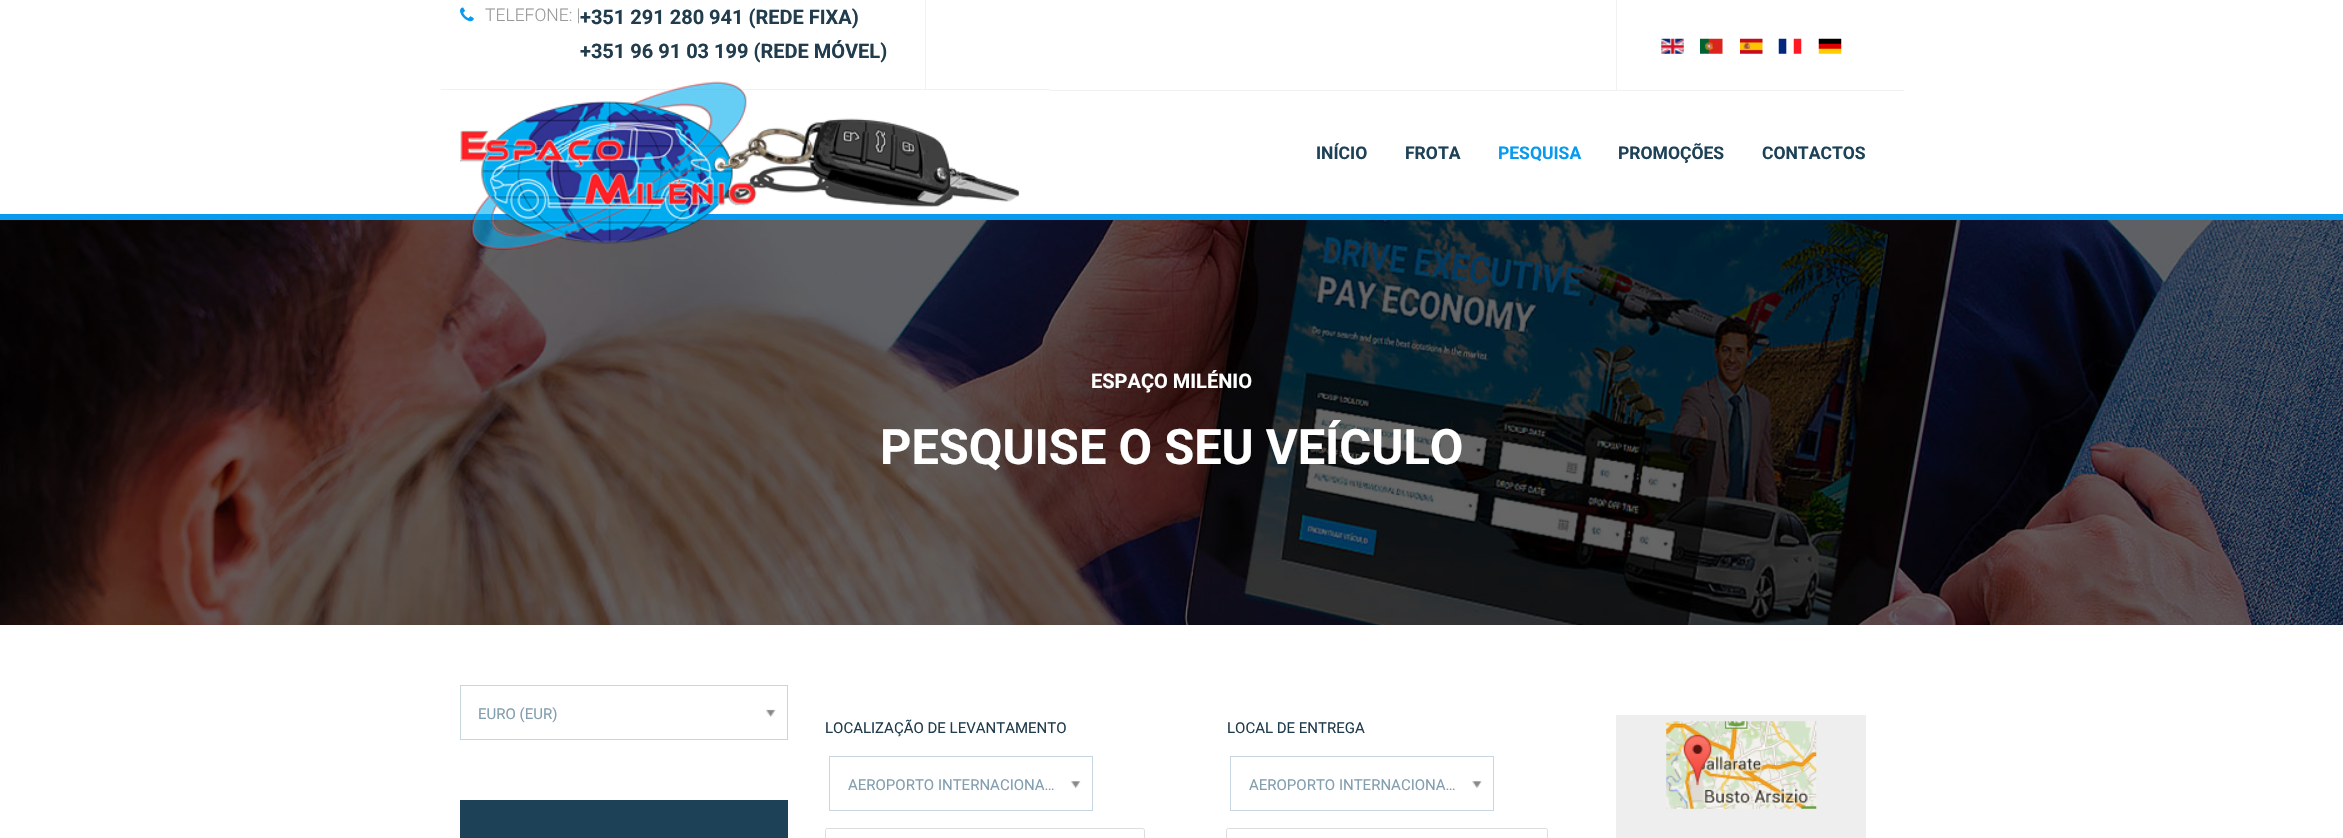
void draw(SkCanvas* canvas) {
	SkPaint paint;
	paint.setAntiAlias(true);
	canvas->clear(0xffffffff);
	paint.setColor(0xfff1f1f1);
	canvas->drawRect(SkRect::MakeXYWH(441, 89, 609, 1), paint);
	canvas->drawRect(SkRect::MakeXYWH(925, 0, 1, 89), paint);
	canvas->drawImageRect(SkImages::DeferredFromEncodedData(SkData::MakeFromFileName("img1.png")), SkRect::MakeXYWH(460, 7, 14, 15), SkSamplingOptions());
	SkFont f1(fontMgr->matchFamilyStyle("Roboto", SkFontStyle(300, SkFontStyle::kNormal_Width, SkFontStyle::kUpright_Slant)), 17.5);
	f1.setSubpixel(true);
	paint.setColor(0xff999999);
	canvas->drawString("TELEFONE: |", 485, 21, f1, paint);
	SkFont f2(fontMgr->matchFamilyStyle("Roboto", SkFontStyle::Bold()), 20);
	f2.setSubpixel(true);
	paint.setColor(0xff203c4d);
	canvas->drawString("+351 291 280 941 (REDE FIXA)", 580, 24, f2, paint);
	canvas->drawString("+351 96 91 03 199 (REDE MÓVEL)", 580, 58, f2, paint);
	paint.setColor(0xfff1f1f1);
	canvas->drawRect(SkRect::MakeXYWH(1050, 90, 854, 1), paint);
	canvas->drawRect(SkRect::MakeXYWH(1616, 0, 1, 90), paint);
	canvas->drawImageRect(SkImages::DeferredFromEncodedData(SkData::MakeFromFileName("img2.png")), SkRect::MakeXYWH(1661, 38, 23, 16), SkSamplingOptions());
	canvas->drawImageRect(SkImages::DeferredFromEncodedData(SkData::MakeFromFileName("img3.png")), SkRect::MakeXYWH(1700, 38, 23, 16), SkSamplingOptions());
	canvas->drawImageRect(SkImages::DeferredFromEncodedData(SkData::MakeFromFileName("img4.png")), SkRect::MakeXYWH(1740, 38, 23, 16), SkSamplingOptions());
	canvas->drawImageRect(SkImages::DeferredFromEncodedData(SkData::MakeFromFileName("img5.png")), SkRect::MakeXYWH(1778, 38, 24, 16), SkSamplingOptions());
	canvas->drawImageRect(SkImages::DeferredFromEncodedData(SkData::MakeFromFileName("img6.png")), SkRect::MakeXYWH(1818, 38, 24, 16), SkSamplingOptions());
	paint.setColor(0xff079aee);
	canvas->drawRect(SkRect::MakeXYWH(0, 214, 2343, 6), paint);
	canvas->drawImageRect(SkImages::DeferredFromEncodedData(SkData::MakeFromFileName("img8.png")), SkRect::MakeXYWH(0, 220, 2343, 405), SkSamplingOptions());
	canvas->drawImageRect(SkImages::DeferredFromEncodedData(SkData::MakeFromFileName("img7.png")), SkRect::MakeXYWH(460, 81, 560, 169), SkSamplingOptions());
	SkFont f3(fontMgr->matchFamilyStyle("Roboto", SkFontStyle::Bold()), 17.5);
	f3.setSubpixel(true);
	paint.setColor(0xff1d4156);
	canvas->drawString("INÍCIO", 1316, 159, f3, paint);
	canvas->drawString("FROTA", 1405, 159, f3, paint);
	paint.setColor(0xff079aee);
	canvas->drawString("PESQUISA", 1498, 159, f3, paint);
	paint.setColor(0xff1d4156);
	canvas->drawString("PROMOÇÕES", 1618, 159, f3, paint);
	canvas->drawString("CONTACTOS", 1762, 159, f3, paint);
	paint.setColor(0xffffffff);
	canvas->drawString("ESPAÇO MILÉNIO", 1091, 388, f2, paint);
	SkFont f4(fontMgr->matchFamilyStyle("Roboto", SkFontStyle::Bold()), 48.75);
	f4.setSubpixel(true);
	canvas->drawString("PESQUISE O SEU VEÍCULO", 880, 464, f4, paint);
	paint.setStroke(true);
	paint.setStrokeWidth(1);
	paint.setColor(0xffc7d7e1);
	canvas->drawRect(SkRect::MakeXYWH(460.5, 685.5, 327, 54), paint);
	SkFont f5(fontMgr->matchFamilyStyle("Roboto", SkFontStyle::Normal()), 15);
	f5.setSubpixel(true);
	paint.setStroke(false);
	paint.setColor(0xff829eaf);
	canvas->drawString("EURO (EUR)", 478, 719, f5, paint);
	canvas->drawImageRect(SkImages::DeferredFromEncodedData(SkData::MakeFromFileName("img9.png")), SkRect::MakeXYWH(766, 709, 10, 8), SkSamplingOptions());
	paint.setColor(0xff1d4156);
	canvas->drawRect(SkRect::MakeXYWH(460, 800, 328, 38), paint);
	paint.setColor(0xff203c4d);
	canvas->drawString("LOCALIZAÇÃO DE LEVANTAMENTO", 825, 733, f5, paint);
	paint.setStroke(true);
	paint.setColor(0xffc7d7e1);
	canvas->drawRect(SkRect::MakeXYWH(829.5, 756.5, 263, 54), paint);
	paint.setStroke(false);
	paint.setColor(0xff829eaf);
	canvas->drawString("AEROPORTO INTERNACIONA…", 848, 790, f5, paint);
	canvas->drawImageRect(SkImages::DeferredFromEncodedData(SkData::MakeFromFileName("img10.png")), SkRect::MakeXYWH(1071, 781, 10, 8), SkSamplingOptions());
	paint.setColor(0xff203c4d);
	canvas->drawString("LOCAL DE ENTREGA", 1227, 733, f5, paint);
	paint.setStroke(true);
	paint.setColor(0xffc7d7e1);
	canvas->drawRect(SkRect::MakeXYWH(1230.5, 756.5, 263, 54), paint);
	paint.setStroke(false);
	paint.setColor(0xff829eaf);
	canvas->drawString("AEROPORTO INTERNACIONA…", 1249, 790, f5, paint);
	canvas->drawImageRect(SkImages::DeferredFromEncodedData(SkData::MakeFromFileName("img11.png")), SkRect::MakeXYWH(1472, 781, 10, 7), SkSamplingOptions());
	paint.setStroke(true);
	paint.setColor(0xffdddddd);
	canvas->drawRoundRect(SkRect::MakeXYWH(825.5, 828.5, 319, 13), 2, 2, paint);
	canvas->drawRoundRect(SkRect::MakeXYWH(1226.5, 828.5, 321, 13), 2, 2, paint);
	paint.setStroke(false);
	paint.setColor(0xffeeeeee);
	canvas->drawRect(SkRect::MakeXYWH(1616, 715, 250, 123), paint);
	canvas->drawImageRect(SkImages::DeferredFromEncodedData(SkData::MakeFromFileName("img12.png")), SkRect::MakeXYWH(1666, 721, 151, 88), SkSamplingOptions());
}
